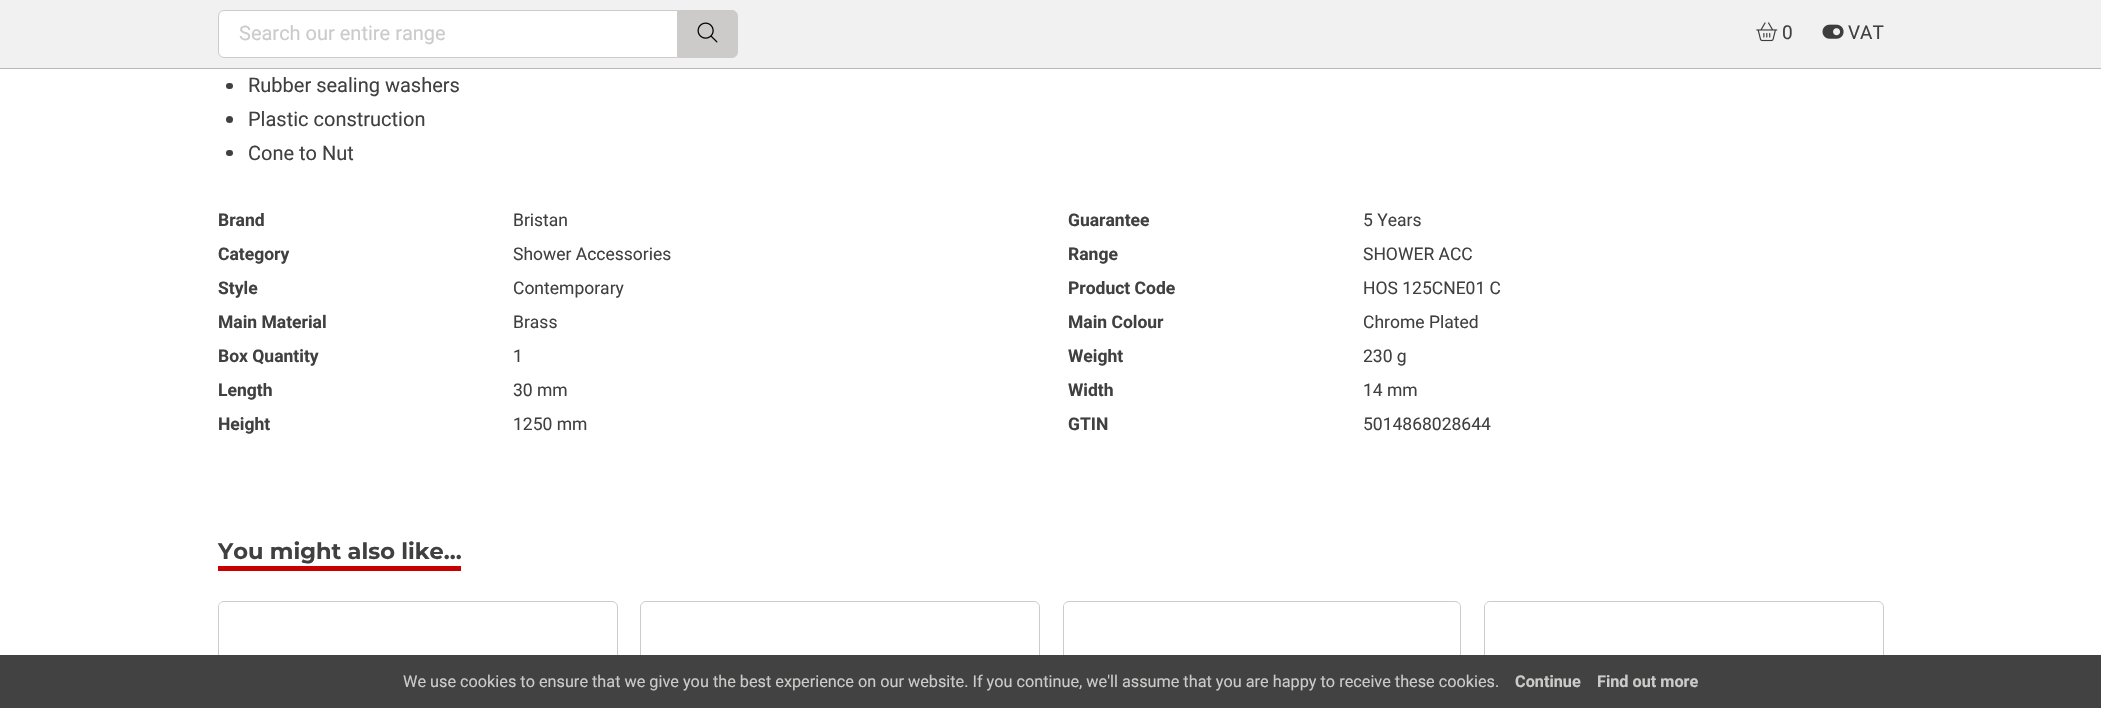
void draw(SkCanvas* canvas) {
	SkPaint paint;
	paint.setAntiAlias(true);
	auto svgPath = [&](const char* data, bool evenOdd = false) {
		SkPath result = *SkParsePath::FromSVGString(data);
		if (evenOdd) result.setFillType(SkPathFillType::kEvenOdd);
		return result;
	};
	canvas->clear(0xffffffff);
	paint.setColor(0xfff1f1f1);
	canvas->drawRect(SkRect::MakeXYWH(0, 0, 2101, 68), paint);
	paint.setColor(0xffb9b9b9);
	canvas->drawRect(SkRect::MakeXYWH(0, 68, 2101, 1), paint);
	paint.setColor(0xffffffff);
	canvas->drawPath(svgPath("M224 10.5H677.5V57.5H224C221 57.5 218.5 55 218.5 52V16C218.5 13 221 10.5 224 10.5Z"), paint);
	paint.setStroke(true);
	paint.setStrokeWidth(1);
	paint.setColor(0xffcccbca);
	canvas->drawPath(svgPath("M224 10.5H677.5V57.5H224C221 57.5 218.5 55 218.5 52V16C218.5 13 221 10.5 224 10.5Z"), paint);
	SkFont f1(fontMgr->matchFamilyStyle("Roboto", SkFontStyle::Normal()), 20);
	f1.setSubpixel(true);
	paint.setStroke(false);
	canvas->drawString("Search our entire range", 239, 40, f1, paint);
	canvas->drawPath(svgPath("M678.5 10.5H732C735 10.5 737.5 13 737.5 16V52C737.5 55 735 57.5 732 57.5H678.5Z"), paint);
	paint.setStroke(true);
	canvas->drawPath(svgPath("M678.5 10.5H732C735 10.5 737.5 13 737.5 16V52C737.5 55 735 57.5 732 57.5H678.5Z"), paint);
	canvas->drawImageRect(SkImages::DeferredFromEncodedData(SkData::MakeFromFileName("img1.png")), SkRect::MakeXYWH(697, 22, 21, 21), SkSamplingOptions());
	canvas->drawImageRect(SkImages::DeferredFromEncodedData(SkData::MakeFromFileName("img2.png")), SkRect::MakeXYWH(1756, 22, 22, 20), SkSamplingOptions());
	SkFont f2(fontMgr->matchFamilyStyle("Roboto", SkFontStyle::Normal()), 19);
	f2.setSubpixel(true);
	paint.setStroke(false);
	paint.setColor(0xff404040);
	canvas->drawString("0", 1782, 39, f2, paint);
	canvas->drawImageRect(SkImages::DeferredFromEncodedData(SkData::MakeFromFileName("img3.png")), SkRect::MakeXYWH(1822, 24, 22, 15), SkSamplingOptions());
	canvas->drawString("VAT", 1848, 39, f2, paint);
	canvas->drawRoundRect(SkRect::MakeXYWH(226, 83, 7, 6), 3, 3, paint);
	canvas->drawString("Rubber sealing washers", 248, 92, f1, paint);
	canvas->drawCircle(229.5, 119.5, 3.5, paint);
	canvas->drawString("Plastic construction", 248, 126, f1, paint);
	canvas->drawRoundRect(SkRect::MakeXYWH(226, 150, 7, 6), 3, 3, paint);
	canvas->drawString("Cone to Nut", 248, 160, f1, paint);
	SkFont f3(fontMgr->matchFamilyStyle("Roboto", SkFontStyle::Bold()), 17.5);
	f3.setSubpixel(true);
	canvas->drawString("Brand", 218, 226, f3, paint);
	SkFont f4(fontMgr->matchFamilyStyle("Roboto", SkFontStyle::Normal()), 17.5);
	f4.setSubpixel(true);
	canvas->drawString("Bristan", 513, 226, f4, paint);
	canvas->drawString("Guarantee", 1068, 226, f3, paint);
	canvas->drawString("5 Years", 1363, 226, f4, paint);
	canvas->drawString("Category", 218, 260, f3, paint);
	canvas->drawString("Shower Accessories", 513, 260, f4, paint);
	canvas->drawString("Range", 1068, 260, f3, paint);
	canvas->drawString("SHOWER ACC", 1363, 260, f4, paint);
	canvas->drawString("Style", 218, 294, f3, paint);
	canvas->drawString("Contemporary", 513, 294, f4, paint);
	canvas->drawString("Product Code", 1068, 294, f3, paint);
	canvas->drawString("HOS 125CNE01 C", 1363, 294, f4, paint);
	canvas->drawString("Main Material", 218, 328, f3, paint);
	canvas->drawString("Brass", 513, 328, f4, paint);
	canvas->drawString("Main Colour", 1068, 328, f3, paint);
	canvas->drawString("Chrome Plated", 1363, 328, f4, paint);
	canvas->drawString("Box Quantity", 218, 362, f3, paint);
	canvas->drawString("1", 513, 362, f4, paint);
	canvas->drawString("Weight", 1068, 362, f3, paint);
	canvas->drawString("230 g", 1363, 362, f4, paint);
	canvas->drawString("Length", 218, 396, f3, paint);
	canvas->drawString("30 mm", 513, 396, f4, paint);
	canvas->drawString("Width", 1068, 396, f3, paint);
	canvas->drawString("14 mm", 1363, 396, f4, paint);
	canvas->drawString("Height", 218, 430, f3, paint);
	canvas->drawString("1250 mm", 513, 430, f4, paint);
	canvas->drawString("GTIN", 1068, 430, f3, paint);
	canvas->drawString("5014868028644", 1363, 430, f4, paint);
	SkFont f5(fontMgr->matchFamilyStyle("Montserrat", SkFontStyle::Bold()), 22.5);
	f5.setSubpixel(true);
	canvas->drawString("You might also like…", 218, 559, f5, paint);
	paint.setColor(0xffc90000);
	canvas->drawRect(SkRect::MakeXYWH(218, 566, 243, 5), paint);
	paint.setStroke(true);
	paint.setColor(0xffcccbca);
	canvas->drawRoundRect(SkRect::MakeXYWH(218.5, 601.5, 399, 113), 5.5, 5.5, paint);
	paint.setStroke(false);
	paint.setColor(0xffffffff);
	canvas->drawPath(svgPath("M224 603H611C614 603 616 605 616 608V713H219V608C219 605 221 603 224 603Z"), paint);
	canvas->drawImageRect(SkImages::DeferredFromEncodedData(SkData::MakeFromFileName("img4.png")), SkRect::MakeXYWH(219, 602, 4, 4), SkSamplingOptions());
	paint.setStroke(true);
	paint.setColor(0xffcccbca);
	canvas->drawRoundRect(SkRect::MakeXYWH(640.5, 601.5, 399, 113), 5.5, 5.5, paint);
	paint.setStroke(false);
	paint.setColor(0xffffffff);
	canvas->drawPath(svgPath("M646 603H1034C1037 603 1039 605 1039 608V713H641V608C641 605 643 603 646 603Z"), paint);
	canvas->drawImageRect(SkImages::DeferredFromEncodedData(SkData::MakeFromFileName("img5.png")), SkRect::MakeXYWH(644, 602, 392, 1), SkSamplingOptions());
	paint.setStroke(true);
	paint.setColor(0xffcccbca);
	canvas->drawRoundRect(SkRect::MakeXYWH(1063.5, 601.5, 397, 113), 5.5, 5.5, paint);
	paint.setStroke(false);
	paint.setColor(0xffffffff);
	canvas->drawPath(svgPath("M1069 603H1455C1458 603 1460 605 1460 608V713H1064V608C1064 605 1066 603 1069 603Z"), paint);
	canvas->drawImageRect(SkImages::DeferredFromEncodedData(SkData::MakeFromFileName("img6.png")), SkRect::MakeXYWH(1064, 603, 396, 3), SkSamplingOptions());
	paint.setStroke(true);
	paint.setColor(0xffcccbca);
	canvas->drawRoundRect(SkRect::MakeXYWH(1484.5, 601.5, 399, 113), 5.5, 5.5, paint);
	paint.setStroke(false);
	paint.setColor(0xffffffff);
	canvas->drawPath(svgPath("M1490 603H1878C1881 603 1883 605 1883 608V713H1485V608C1485 605 1487 603 1490 603Z"), paint);
	canvas->drawImageRect(SkImages::DeferredFromEncodedData(SkData::MakeFromFileName("img7.png")), SkRect::MakeXYWH(1485, 602, 333, 53), SkSamplingOptions());
	paint.setColor(0xff424242);
	canvas->drawRect(SkRect::MakeXYWH(0, 655, 2101, 53), paint);
	SkFont f6(fontMgr->matchFamilyStyle("Roboto", SkFontStyle::Normal()), 16.25);
	f6.setSubpixel(true);
	paint.setColor(0xffcccbca);
	canvas->drawString("We use cookies to ensure that we give you the best experience on our website. If you continue, we'll assume that you are happy to receive these cookies.", 403, 687, f6, paint);
	SkFont f7(fontMgr->matchFamilyStyle("Roboto", SkFontStyle::Bold()), 16.25);
	f7.setSubpixel(true);
	canvas->drawString("Continue", 1515, 687, f7, paint);
	canvas->drawString("Find out more", 1597, 687, f7, paint);
}
